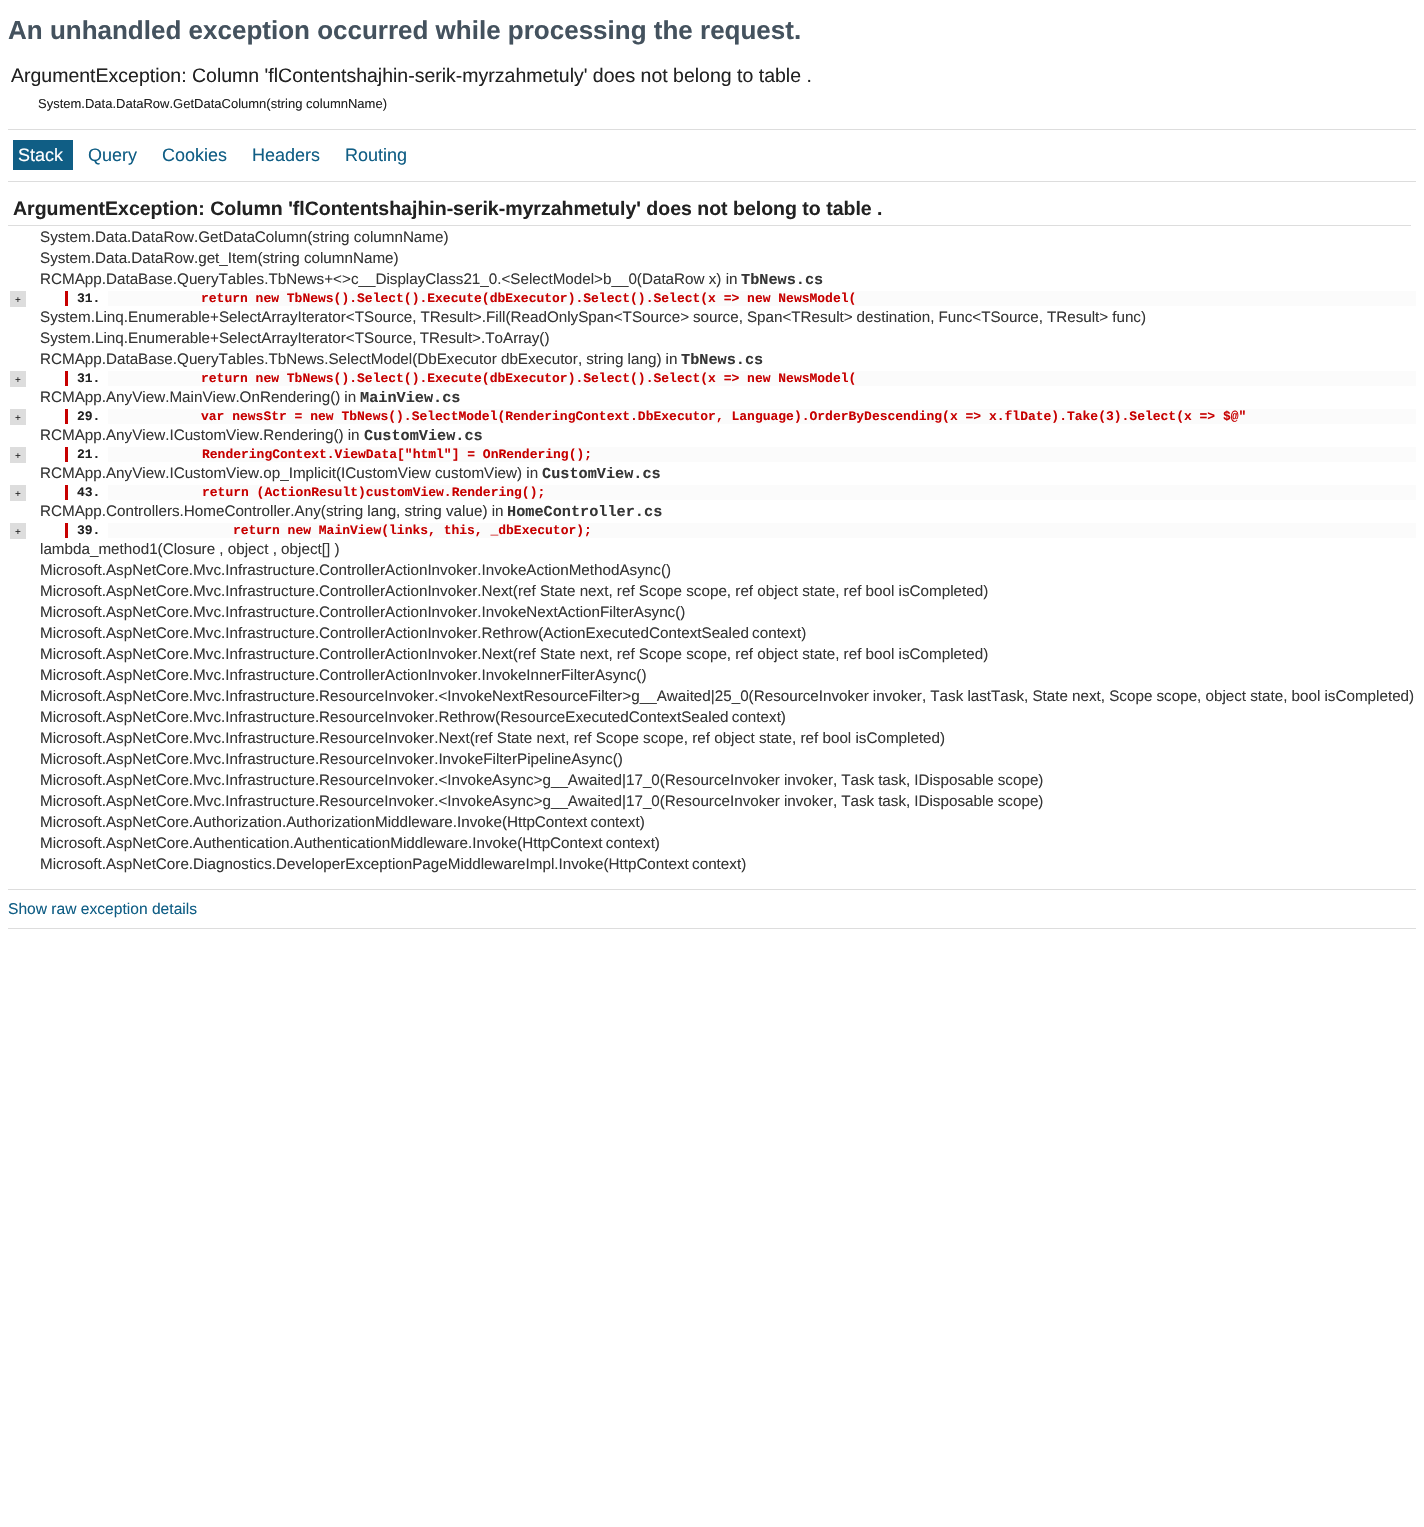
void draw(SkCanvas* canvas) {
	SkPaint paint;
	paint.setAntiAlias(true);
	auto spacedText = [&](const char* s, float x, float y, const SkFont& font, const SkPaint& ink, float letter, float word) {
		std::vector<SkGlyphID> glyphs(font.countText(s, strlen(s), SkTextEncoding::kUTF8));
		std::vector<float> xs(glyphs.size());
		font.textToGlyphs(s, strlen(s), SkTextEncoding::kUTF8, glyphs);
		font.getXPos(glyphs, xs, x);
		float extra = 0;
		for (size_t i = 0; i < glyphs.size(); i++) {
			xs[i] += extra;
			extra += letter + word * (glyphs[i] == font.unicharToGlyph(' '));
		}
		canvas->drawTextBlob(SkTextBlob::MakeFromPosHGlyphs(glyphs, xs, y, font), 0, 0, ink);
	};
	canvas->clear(0xffffffff);
	SkFont f1(fontMgr->matchFamilyStyle("Liberation Sans", SkFontStyle::Bold()), 26);
	f1.setSubpixel(true);
	paint.setColor(0xff44525e);
	canvas->drawString("An unhandled exception occurred while processing the request.", 8, 39, f1, paint);
	SkFont f2(fontMgr->matchFamilyStyle("Liberation Sans", SkFontStyle::Normal()), 19.5);
	f2.setSubpixel(true);
	paint.setColor(0xff222222);
	canvas->drawString("ArgumentException: Column 'flContentshajhin-serik-myrzahmetuly' does not belong to table .", 11, 82, f2, paint);
	SkFont f3(fontMgr->matchFamilyStyle("Liberation Sans", SkFontStyle::Normal()), 13);
	f3.setSubpixel(true);
	canvas->drawString("System.Data.DataRow.GetDataColumn(string columnName)", 38, 108, f3, paint);
	paint.setColor(0xffdddddd);
	canvas->drawRect(SkRect::MakeXYWH(8, 129, 1408, 1), paint);
	canvas->drawRect(SkRect::MakeXYWH(8, 181, 1408, 1), paint);
	paint.setColor(0xff105e85);
	canvas->drawRect(SkRect::MakeXYWH(13, 140, 60, 30), paint);
	SkFont f4(fontMgr->matchFamilyStyle("Liberation Sans", SkFontStyle::Normal()), 18);
	f4.setSubpixel(true);
	paint.setColor(0xffffffff);
	canvas->drawString("Stack", 18, 161, f4, paint);
	paint.setColor(0xff105e85);
	canvas->drawString("Query", 88, 161, f4, paint);
	canvas->drawString("Cookies", 162, 161, f4, paint);
	canvas->drawString("Headers", 252, 161, f4, paint);
	canvas->drawString("Routing", 345, 161, f4, paint);
	paint.setColor(0xffdddddd);
	canvas->drawRect(SkRect::MakeXYWH(8, 225, 1403, 1), paint);
	SkFont f5(fontMgr->matchFamilyStyle("Liberation Sans", SkFontStyle::Bold()), 19.5);
	f5.setSubpixel(true);
	paint.setColor(0xff222222);
	canvas->drawString("ArgumentException: Column 'flContentshajhin-serik-myrzahmetuly' does not belong to table .", 13, 215, f5, paint);
	SkFont f6(fontMgr->matchFamilyStyle("Liberation Sans", SkFontStyle::Normal()), 15.22);
	f6.setSubpixel(true);
	paint.setColor(0xff363636);
	canvas->drawString("System.Data.DataRow.GetDataColumn(string columnName)", 40, 242, f6, paint);
	canvas->drawString("System.Data.DataRow.get_Item(string columnName)", 40, 263, f6, paint);
	canvas->drawString("RCMApp.DataBase.QueryTables.TbNews+<>c__DisplayClass21_0.<SelectModel>b__0(DataRow x) in", 40, 284, f6, paint);
	SkFont f7(fontMgr->matchFamilyStyle("Liberation Mono", SkFontStyle::Bold()), 15.22);
	f7.setSubpixel(true);
	canvas->drawString("TbNews.cs", 741, 284, f7, paint);
	paint.setColor(0xffdddddd);
	canvas->drawRect(SkRect::MakeXYWH(10, 291, 16, 16), paint);
	SkFont f8(fontMgr->matchFamilyStyle("Liberation Sans", SkFontStyle::Normal()), 10);
	f8.setSubpixel(true);
	paint.setColor(0xff222222);
	canvas->drawString("+", 15, 303, f8, paint);
	paint.setColor(0xffc70000);
	canvas->drawRect(SkRect::MakeXYWH(65, 291, 3, 15), paint);
	paint.setColor(0xfffbfbfb);
	canvas->drawRect(SkRect::MakeXYWH(108, 291, 1308, 15), paint);
	SkFont f9(fontMgr->matchFamilyStyle("Liberation Mono", SkFontStyle::Bold()), 13);
	f9.setSubpixel(true);
	paint.setColor(0xff222222);
	canvas->drawString("31.", 77, 302, f9, paint);
	paint.setColor(0xffc70000);
	canvas->drawString("return new TbNews().Select().Execute(dbExecutor).Select().Select(x => new NewsModel(", 201, 302, f9, paint);
	paint.setColor(0xff363636);
	spacedText("System.Linq.Enumerable+SelectArrayIterator<TSource, TResult>.Fill(ReadOnlySpan<TSource> source, Span<TResult> destination, Func<TSource, TResult> func)", 40, 322, f6, paint, 0, -0.25);
	spacedText("System.Linq.Enumerable+SelectArrayIterator<TSource, TResult>.ToArray()", 40, 343, f6, paint, 0, -1);
	spacedText("RCMApp.DataBase.QueryTables.TbNews.SelectModel(DbExecutor dbExecutor, string lang) in", 40, 364, f6, paint, 0, -0.1);
	canvas->drawString("TbNews.cs", 681, 364, f7, paint);
	paint.setColor(0xffdddddd);
	canvas->drawRect(SkRect::MakeXYWH(10, 371, 16, 16), paint);
	paint.setColor(0xff222222);
	canvas->drawString("+", 15, 383, f8, paint);
	paint.setColor(0xffc70000);
	canvas->drawRect(SkRect::MakeXYWH(65, 371, 3, 15), paint);
	paint.setColor(0xfffbfbfb);
	canvas->drawRect(SkRect::MakeXYWH(108, 371, 1308, 15), paint);
	paint.setColor(0xff222222);
	canvas->drawString("31.", 77, 382, f9, paint);
	paint.setColor(0xffc70000);
	canvas->drawString("return new TbNews().Select().Execute(dbExecutor).Select().Select(x => new NewsModel(", 201, 382, f9, paint);
	paint.setColor(0xff363636);
	spacedText("RCMApp.AnyView.MainView.OnRendering() in", 40, 402, f6, paint, 0, -0.25);
	canvas->drawString("MainView.cs", 360, 402, f7, paint);
	paint.setColor(0xffdddddd);
	canvas->drawRect(SkRect::MakeXYWH(10, 409, 16, 16), paint);
	paint.setColor(0xff222222);
	canvas->drawString("+", 15, 421, f8, paint);
	paint.setColor(0xffc70000);
	canvas->drawRect(SkRect::MakeXYWH(65, 409, 3, 15), paint);
	paint.setColor(0xfffbfbfb);
	canvas->drawRect(SkRect::MakeXYWH(108, 409, 1308, 15), paint);
	paint.setColor(0xff222222);
	canvas->drawString("29.", 77, 420, f9, paint);
	paint.setColor(0xffc70000);
	canvas->drawString("var newsStr = new TbNews().SelectModel(RenderingContext.DbExecutor, Language).OrderByDescending(x => x.flDate).Take(3).Select(x => $@\"", 201, 420, f9, paint);
	paint.setColor(0xff363636);
	spacedText("RCMApp.AnyView.ICustomView.Rendering() in", 40, 440, f6, paint, 0, -0.25);
	canvas->drawString("CustomView.cs", 364, 440, f7, paint);
	paint.setColor(0xffdddddd);
	canvas->drawRect(SkRect::MakeXYWH(10, 447, 16, 16), paint);
	paint.setColor(0xff222222);
	canvas->drawString("+", 15, 459, f8, paint);
	paint.setColor(0xffc70000);
	canvas->drawRect(SkRect::MakeXYWH(65, 447, 3, 15), paint);
	paint.setColor(0xfffbfbfb);
	canvas->drawRect(SkRect::MakeXYWH(108, 447, 1308, 15), paint);
	paint.setColor(0xff222222);
	canvas->drawString("21.", 77, 458, f9, paint);
	paint.setColor(0xffc70000);
	canvas->drawString("RenderingContext.ViewData[\"html\"] = OnRendering();", 202, 458, f9, paint);
	paint.setColor(0xff363636);
	canvas->drawString("RCMApp.AnyView.ICustomView.op_Implicit(ICustomView customView) in", 40, 478, f6, paint);
	canvas->drawString("CustomView.cs", 542, 478, f7, paint);
	paint.setColor(0xffdddddd);
	canvas->drawRect(SkRect::MakeXYWH(10, 485, 16, 16), paint);
	paint.setColor(0xff222222);
	canvas->drawString("+", 15, 497, f8, paint);
	paint.setColor(0xffc70000);
	canvas->drawRect(SkRect::MakeXYWH(65, 485, 3, 15), paint);
	paint.setColor(0xfffbfbfb);
	canvas->drawRect(SkRect::MakeXYWH(108, 485, 1308, 15), paint);
	paint.setColor(0xff222222);
	canvas->drawString("43.", 77, 496, f9, paint);
	paint.setColor(0xffc70000);
	canvas->drawString("return (ActionResult)customView.Rendering();", 202, 496, f9, paint);
	paint.setColor(0xff363636);
	canvas->drawString("RCMApp.Controllers.HomeController.Any(string lang, string value) in", 40, 516, f6, paint);
	canvas->drawString("HomeController.cs", 507, 516, f7, paint);
	paint.setColor(0xffdddddd);
	canvas->drawRect(SkRect::MakeXYWH(10, 523, 16, 16), paint);
	paint.setColor(0xff222222);
	canvas->drawString("+", 15, 535, f8, paint);
	paint.setColor(0xffc70000);
	canvas->drawRect(SkRect::MakeXYWH(65, 523, 3, 15), paint);
	paint.setColor(0xfffbfbfb);
	canvas->drawRect(SkRect::MakeXYWH(108, 523, 1308, 15), paint);
	paint.setColor(0xff222222);
	canvas->drawString("39.", 77, 534, f9, paint);
	paint.setColor(0xffc70000);
	canvas->drawString("return new MainView(links, this, _dbExecutor);", 233, 534, f9, paint);
	paint.setColor(0xff363636);
	canvas->drawString("lambda_method1(Closure , object , object[] )", 40, 554, f6, paint);
	canvas->drawString("Microsoft.AspNetCore.Mvc.Infrastructure.ControllerActionInvoker.InvokeActionMethodAsync()", 40, 575, f6, paint);
	canvas->drawString("Microsoft.AspNetCore.Mvc.Infrastructure.ControllerActionInvoker.Next(ref State next, ref Scope scope, ref object state, ref bool isCompleted)", 40, 596, f6, paint);
	canvas->drawString("Microsoft.AspNetCore.Mvc.Infrastructure.ControllerActionInvoker.InvokeNextActionFilterAsync()", 40, 617, f6, paint);
	spacedText("Microsoft.AspNetCore.Mvc.Infrastructure.ControllerActionInvoker.Rethrow(ActionExecutedContextSealed context)", 40, 638, f6, paint, 0, -1);
	canvas->drawString("Microsoft.AspNetCore.Mvc.Infrastructure.ControllerActionInvoker.Next(ref State next, ref Scope scope, ref object state, ref bool isCompleted)", 40, 659, f6, paint);
	canvas->drawString("Microsoft.AspNetCore.Mvc.Infrastructure.ControllerActionInvoker.InvokeInnerFilterAsync()", 40, 680, f6, paint);
	spacedText("Microsoft.AspNetCore.Mvc.Infrastructure.ResourceInvoker.<InvokeNextResourceFilter>g__Awaited|25_0(ResourceInvoker invoker, Task lastTask, State next, Scope scope, object state, bool isCompleted)", 40, 701, f6, paint, 0, -0.1);
	spacedText("Microsoft.AspNetCore.Mvc.Infrastructure.ResourceInvoker.Rethrow(ResourceExecutedContextSealed context)", 40, 722, f6, paint, 0, -1);
	canvas->drawString("Microsoft.AspNetCore.Mvc.Infrastructure.ResourceInvoker.Next(ref State next, ref Scope scope, ref object state, ref bool isCompleted)", 40, 743, f6, paint);
	canvas->drawString("Microsoft.AspNetCore.Mvc.Infrastructure.ResourceInvoker.InvokeFilterPipelineAsync()", 40, 764, f6, paint);
	spacedText("Microsoft.AspNetCore.Mvc.Infrastructure.ResourceInvoker.<InvokeAsync>g__Awaited|17_0(ResourceInvoker invoker, Task task, IDisposable scope)", 40, 785, f6, paint, 0, -0.25);
	spacedText("Microsoft.AspNetCore.Mvc.Infrastructure.ResourceInvoker.<InvokeAsync>g__Awaited|17_0(ResourceInvoker invoker, Task task, IDisposable scope)", 40, 806, f6, paint, 0, -0.25);
	spacedText("Microsoft.AspNetCore.Authorization.AuthorizationMiddleware.Invoke(HttpContext context)", 40, 827, f6, paint, 0, -1);
	spacedText("Microsoft.AspNetCore.Authentication.AuthenticationMiddleware.Invoke(HttpContext context)", 40, 848, f6, paint, 0, -1);
	spacedText("Microsoft.AspNetCore.Diagnostics.DeveloperExceptionPageMiddlewareImpl.Invoke(HttpContext context)", 40, 869, f6, paint, 0, -1);
	paint.setColor(0xffdddddd);
	canvas->drawRect(SkRect::MakeXYWH(8, 889, 1408, 1), paint);
	canvas->drawRect(SkRect::MakeXYWH(8, 928, 1408, 1), paint);
	SkFont f10(fontMgr->matchFamilyStyle("Liberation Sans", SkFontStyle::Normal()), 15.6);
	f10.setSubpixel(true);
	paint.setColor(0xff105e85);
	canvas->drawString("Show raw exception details", 8, 914, f10, paint);
}
